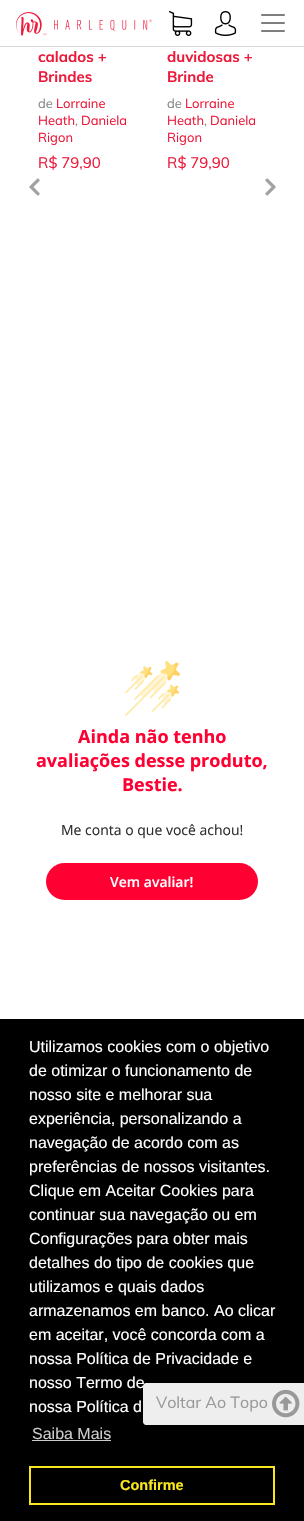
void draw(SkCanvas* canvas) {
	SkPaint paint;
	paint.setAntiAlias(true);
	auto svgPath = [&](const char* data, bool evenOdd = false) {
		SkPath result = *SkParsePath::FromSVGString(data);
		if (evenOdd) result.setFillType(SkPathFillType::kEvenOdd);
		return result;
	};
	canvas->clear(0xffffffff);
	canvas->drawImageRect(SkImages::DeferredFromEncodedData(SkData::MakeFromFileName("img1.png")), SkRect::MakeXYWH(16, 12, 136, 24), SkSamplingOptions());
	canvas->drawImageRect(SkImages::DeferredFromEncodedData(SkData::MakeFromFileName("img2.png")), SkRect::MakeXYWH(168, 11, 25, 25), SkSamplingOptions());
	canvas->drawImageRect(SkImages::DeferredFromEncodedData(SkData::MakeFromFileName("img3.png")), SkRect::MakeXYWH(214, 11, 23, 25), SkSamplingOptions());
	canvas->drawImageRect(SkImages::DeferredFromEncodedData(SkData::MakeFromFileName("img4.png")), SkRect::MakeXYWH(261, 14, 24, 18), SkSamplingOptions());
	paint.setColor(0xffd7d7d7);
	canvas->drawRect(SkRect::MakeXYWH(0, 46, 304, 1), paint);
	SkFont f1(fontMgr->matchFamilyStyle("Muli", SkFontStyle::Bold()), 15);
	f1.setSubpixel(true);
	paint.setColor(0xffed1a3b);
	canvas->drawString("calados +", 38, 62, f1, paint);
	canvas->drawString("Brindes", 38, 82, f1, paint);
	SkFont f2(fontMgr->matchFamilyStyle("Muli", SkFontStyle::Normal()), 13);
	f2.setSubpixel(true);
	paint.setColor(0xff888888);
	canvas->drawString("de", 38, 108, f2, paint);
	paint.setColor(0xffed1a3b);
	canvas->drawString("Lorraine", 56, 108, f2, paint);
	canvas->drawString("Heath", 38, 125, f2, paint);
	paint.setColor(0xff888888);
	canvas->drawString(",", 75, 125, f2, paint);
	paint.setColor(0xffed1a3b);
	canvas->drawString("Daniela", 81, 125, f2, paint);
	canvas->drawString("Rigon", 38, 142, f2, paint);
	SkFont f3(fontMgr->matchFamilyStyle("Muli", SkFontStyle::Normal()), 15);
	f3.setSubpixel(true);
	canvas->drawString("R$ 79,90", 38, 168, f3, paint);
	canvas->drawString("duvidosas +", 167, 62, f1, paint);
	canvas->drawString("Brinde", 167, 82, f1, paint);
	paint.setColor(0xff888888);
	canvas->drawString("de", 167, 108, f2, paint);
	paint.setColor(0xffed1a3b);
	canvas->drawString("Lorraine", 185, 108, f2, paint);
	canvas->drawString("Heath", 167, 125, f2, paint);
	paint.setColor(0xff888888);
	canvas->drawString(",", 204, 125, f2, paint);
	paint.setColor(0xffed1a3b);
	canvas->drawString("Daniela", 210, 125, f2, paint);
	canvas->drawString("Rigon", 167, 142, f2, paint);
	canvas->drawString("R$ 79,90", 167, 168, f3, paint);
	canvas->drawImageRect(SkImages::DeferredFromEncodedData(SkData::MakeFromFileName("img5.png")), SkRect::MakeXYWH(29, 178, 11, 18), SkSamplingOptions());
	canvas->drawImageRect(SkImages::DeferredFromEncodedData(SkData::MakeFromFileName("img6.png")), SkRect::MakeXYWH(265, 178, 11, 18), SkSamplingOptions());
	canvas->drawImageRect(SkImages::DeferredFromEncodedData(SkData::MakeFromFileName("img7.png")), SkRect::MakeXYWH(125, 661, 55, 55), SkSamplingOptions());
	SkFont f4(fontMgr->matchFamilyStyle("Open Sans", SkFontStyle::Bold()), 18);
	f4.setSubpixel(true);
	paint.setColor(0xffff0033);
	canvas->drawString("Ainda não tenho", 78, 743, f4, paint);
	canvas->drawString("avaliações desse produto,", 36, 767, f4, paint);
	canvas->drawString("Bestie.", 122, 791, f4, paint);
	SkFont f5(fontMgr->matchFamilyStyle("Open Sans", SkFontStyle::Normal()), 14);
	f5.setSubpixel(true);
	paint.setColor(0xff2c2c2c);
	canvas->drawString("Me conta o que você achou!", 61, 835, f5, paint);
	paint.setColor(0xffff0033);
	canvas->drawRoundRect(SkRect::MakeXYWH(46, 863, 212, 37), 18.5, 18.5, paint);
	SkFont f6(fontMgr->matchFamilyStyle("Open Sans", SkFontStyle(600, SkFontStyle::kNormal_Width, SkFontStyle::kUpright_Slant)), 14);
	f6.setSubpixel(true);
	paint.setColor(0xffffffff);
	canvas->drawString("Vem avaliar!", 110, 887, f6, paint);
	paint.setColor(0xff000000);
	canvas->drawRect(SkRect::MakeXYWH(0, 1019, 304, 502), paint);
	SkFont f7(fontMgr->matchFamilyStyle("Liberation Sans", SkFontStyle::Normal()), 16);
	f7.setSubpixel(true);
	paint.setColor(0xffffffff);
	canvas->drawString("Utilizamos cookies com o objetivo", 29, 1052, f7, paint);
	canvas->drawString("de otimizar o funcionamento de", 29, 1076, f7, paint);
	canvas->drawString("nosso site e melhorar sua", 29, 1100, f7, paint);
	canvas->drawString("experiência, personalizando a", 29, 1124, f7, paint);
	canvas->drawString("navegação de acordo com as", 29, 1148, f7, paint);
	canvas->drawString("preferências de nossos visitantes.", 29, 1172, f7, paint);
	canvas->drawString("Clique em Aceitar Cookies para", 29, 1196, f7, paint);
	canvas->drawString("continuar sua navegação ou em", 29, 1220, f7, paint);
	canvas->drawString("Configurações para obter mais", 29, 1244, f7, paint);
	canvas->drawString("detalhes do tipo de cookies que", 29, 1268, f7, paint);
	canvas->drawString("utilizamos e quais dados", 29, 1292, f7, paint);
	canvas->drawString("armazenamos em banco. Ao clicar", 29, 1316, f7, paint);
	canvas->drawString("em aceitar, você concorda com a", 29, 1340, f7, paint);
	canvas->drawString("nossa Política de Privacidade e", 29, 1364, f7, paint);
	canvas->drawString("nosso Termo de", 29, 1388, f7, paint);
	canvas->drawString("nossa Política d", 29, 1412, f7, paint);
	paint.setColor(0xffcccccc);
	canvas->drawString("Saiba Mais", 32, 1439, f7, paint);
	canvas->drawRect(SkRect::MakeXYWH(32, 1440, 79, 1), paint);
	paint.setStroke(true);
	paint.setStrokeWidth(2);
	paint.setColor(0xfff8e71c);
	canvas->drawRect(SkRect::MakeXYWH(30, 1467, 244, 37), paint);
	SkFont f8(fontMgr->matchFamilyStyle("Liberation Sans", SkFontStyle::Bold()), 14.5);
	f8.setSubpixel(true);
	paint.setStroke(false);
	canvas->drawString("Confirme", 120, 1490, f8, paint);
	paint.setColor(0xffeeeeee);
	canvas->drawPath(svgPath("M146 1383H304V1425H146C144.5 1425 143 1423.5 143 1422V1386C143 1384.5 144.5 1383 146 1383Z"), paint);
	SkFont f9(fontMgr->matchFamilyStyle("Muli", SkFontStyle::Normal()), 16);
	f9.setSubpixel(true);
	paint.setColor(0xff999999);
	canvas->drawString("Voltar Ao Topo", 156, 1408, f9, paint);
	canvas->drawImageRect(SkImages::DeferredFromEncodedData(SkData::MakeFromFileName("img8.png")), SkRect::MakeXYWH(272, 1389, 28, 29), SkSamplingOptions());
}
